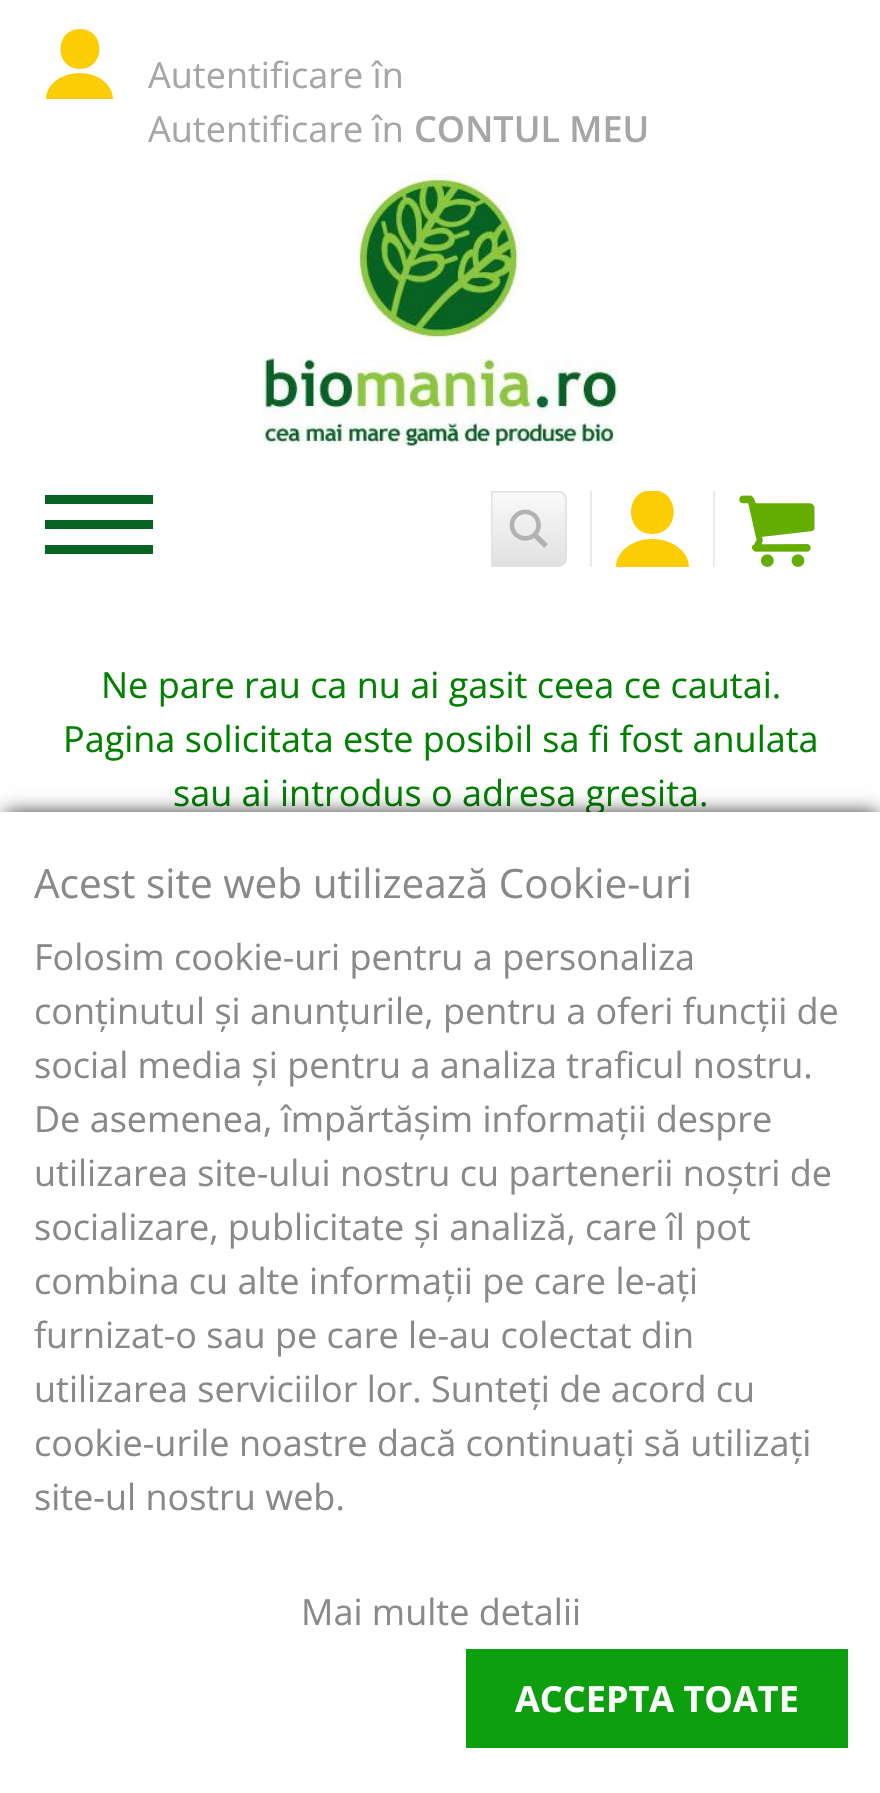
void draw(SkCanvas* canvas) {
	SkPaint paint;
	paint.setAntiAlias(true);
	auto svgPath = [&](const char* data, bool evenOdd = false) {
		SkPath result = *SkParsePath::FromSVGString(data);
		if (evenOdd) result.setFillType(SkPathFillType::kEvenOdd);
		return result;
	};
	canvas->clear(0xffffffff);
	paint.setColor(0xfffccd02);
	canvas->drawPath(svgPath("M80 69C106 69 106 29 80 29C54 29 54 69 80 69ZM80 73C61 73 46 85 46 99H113C113 85 98 73 80 73Z", true), paint);
	SkFont f1(fontMgr->matchFamilyStyle("Open Sans", SkFontStyle::Normal()), 36);
	f1.setSubpixel(true);
	paint.setColor(0xffa6a6a6);
	canvas->drawString("Autentificare în", 148, 88, f1, paint);
	canvas->drawString("Autentificare în", 148, 142, f1, paint);
	SkFont f2(fontMgr->matchFamilyStyle("Open Sans", SkFontStyle(600, SkFontStyle::kNormal_Width, SkFontStyle::kUpright_Slant)), 36);
	f2.setSubpixel(true);
	canvas->drawString("CONTUL MEU", 414, 142, f2, paint);
	canvas->drawImageRect(SkImages::DeferredFromEncodedData(SkData::MakeFromFileName("img1.png")), SkRect::MakeXYWH(263, 173, 356, 273), SkSamplingOptions());
	paint.setColor(0xff076324);
	canvas->drawRect(SkRect::MakeXYWH(45, 495, 108, 9), paint);
	canvas->drawRect(SkRect::MakeXYWH(45, 520, 108, 9), paint);
	canvas->drawRect(SkRect::MakeXYWH(45, 545, 108, 9), paint);
	canvas->drawImageRect(SkImages::DeferredFromEncodedData(SkData::MakeFromFileName("img2.png")), SkRect::MakeXYWH(491, 491, 76, 76), SkSamplingOptions());
	paint.setColor(0xffebebeb);
	canvas->drawRect(SkRect::MakeXYWH(590, 491, 2, 76), paint);
	canvas->save();
	canvas->clipRect(SkRect::MakeXYWH(614, 491, 77, 76));
	paint.setColor(0xfffccd02);
	canvas->drawPath(svgPath("M652 534C681 534 681 490 652 490C624 490 624 534 652 534ZM652 539C632 539 616 552 616 567H689C689 552 673 539 652 539Z", true), paint);
	canvas->restore();
	paint.setColor(0xffebebeb);
	canvas->drawRect(SkRect::MakeXYWH(713, 491, 2, 76), paint);
	canvas->drawImageRect(SkImages::DeferredFromEncodedData(SkData::MakeFromFileName("img3.png")), SkRect::MakeXYWH(739, 495, 76, 72), SkSamplingOptions());
	paint.setColor(0xff008000);
	canvas->drawString("Ne pare rau ca nu ai gasit ceea ce cautai.", 101, 698, f1, paint);
	canvas->drawString("Pagina solicitata este posibil sa fi fost anulata", 63, 752, f1, paint);
	canvas->drawString("sau ai introdus o adresa gresita.", 173, 806, f1, paint);
	paint.setColor(0xbf000000);
	paint.setMaskFilter(SkMaskFilter::MakeBlur(kNormal_SkBlurStyle, 9));
	canvas->drawRect(SkRect::MakeXYWH(5, 812, 873, 972), paint);
	paint.setMaskFilter(nullptr);
	paint.setColor(0xffffffff);
	canvas->drawRect(SkRect::MakeXYWH(0, 812, 880, 981), paint);
	SkFont f3(fontMgr->matchFamilyStyle("Open Sans", SkFontStyle::Normal()), 40.5);
	f3.setSubpixel(true);
	paint.setColor(0xff898989);
	canvas->drawString("Acest site web utilizează Cookie-uri", 34, 898, f3, paint);
	canvas->drawString("Folosim cookie-uri pentru a personaliza", 34, 970, f1, paint);
	canvas->drawString("conținutul și anunțurile, pentru a oferi funcții de", 34, 1024, f1, paint);
	canvas->drawString("social media și pentru a analiza traficul nostru.", 34, 1078, f1, paint);
	canvas->drawString("De asemenea, împărtășim informații despre", 34, 1132, f1, paint);
	canvas->drawString("utilizarea site-ului nostru cu partenerii noștri de", 34, 1186, f1, paint);
	canvas->drawString("socializare, publicitate și analiză, care îl pot", 34, 1240, f1, paint);
	canvas->drawString("combina cu alte informații pe care le-ați", 34, 1294, f1, paint);
	canvas->drawString("furnizat-o sau pe care le-au colectat din", 34, 1348, f1, paint);
	canvas->drawString("utilizarea serviciilor lor. Sunteți de acord cu", 34, 1402, f1, paint);
	canvas->drawString("cookie-urile noastre dacă continuați să utilizați", 34, 1456, f1, paint);
	canvas->drawString("site-ul nostru web.", 34, 1510, f1, paint);
	canvas->drawString("Mai multe detalii", 301, 1625, f1, paint);
	paint.setColor(0xff0d9f0d);
	canvas->drawRect(SkRect::MakeXYWH(466, 1649, 382, 99), paint);
	SkFont f4(fontMgr->matchFamilyStyle("Open Sans", SkFontStyle::Bold()), 36);
	f4.setSubpixel(true);
	paint.setColor(0xffffffff);
	canvas->drawString("ACCEPTA TOATE", 515, 1712, f4, paint);
}
